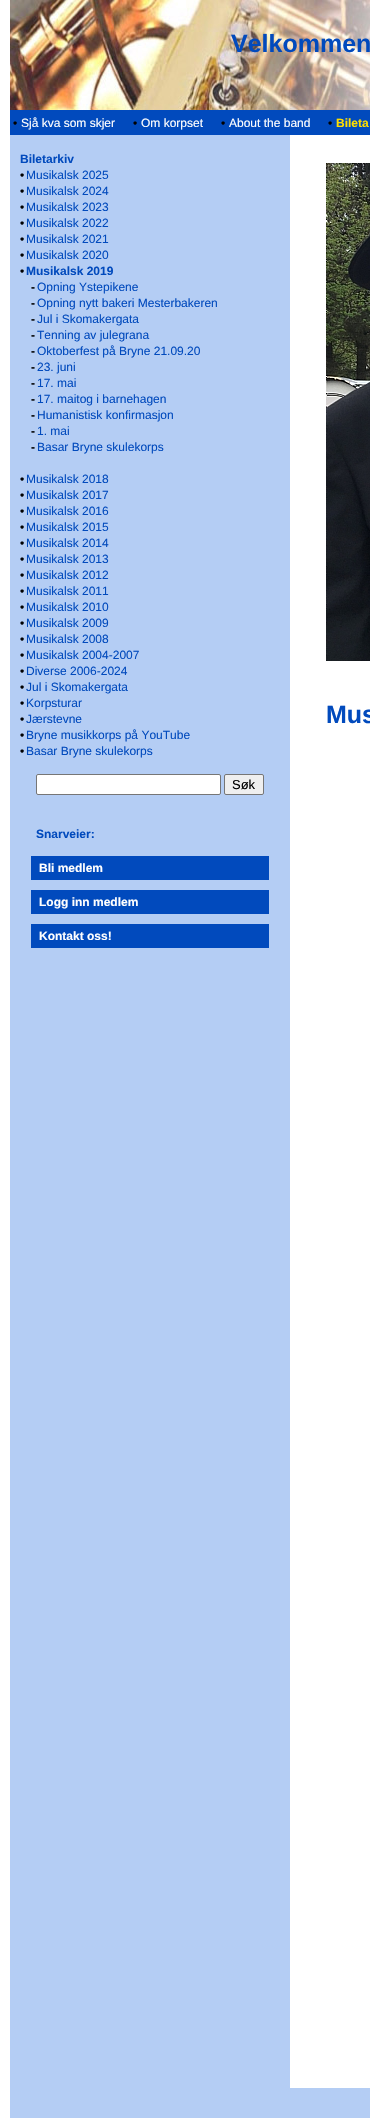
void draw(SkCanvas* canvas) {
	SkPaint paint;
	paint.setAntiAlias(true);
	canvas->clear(0xffffffff);
	canvas->drawImageRect(SkImages::DeferredFromEncodedData(SkData::MakeFromFileName("img1.png")), SkRect::MakeXYWH(10, 0, 360, 110), SkSamplingOptions());
	SkFont f1(fontMgr->matchFamilyStyle("Liberation Sans", SkFontStyle::Bold()), 25);
	f1.setSubpixel(true);
	paint.setColor(0xff014abd);
	canvas->drawString("Velkommen", 231, 52, f1, paint);
	canvas->drawRect(SkRect::MakeXYWH(10, 110, 360, 25), paint);
	SkFont f2(fontMgr->matchFamilyStyle("Liberation Sans", SkFontStyle::Normal()), 12);
	f2.setSubpixel(true);
	paint.setColor(0xff000000);
	canvas->drawString("•", 13, 127, f2, paint);
	paint.setColor(0xffffffff);
	canvas->drawString("Sjå kva som skjer", 21, 127, f2, paint);
	paint.setColor(0xff000000);
	canvas->drawString("•", 133, 127, f2, paint);
	paint.setColor(0xffffffff);
	canvas->drawString("Om korpset", 141, 127, f2, paint);
	paint.setColor(0xff000000);
	canvas->drawString("•", 221, 127, f2, paint);
	paint.setColor(0xffffffff);
	canvas->drawString("About the band", 229, 127, f2, paint);
	paint.setColor(0xff000000);
	canvas->drawString("•", 328, 127, f2, paint);
	SkFont f3(fontMgr->matchFamilyStyle("Liberation Sans", SkFontStyle::Bold()), 12);
	f3.setSubpixel(true);
	paint.setColor(0xffffde00);
	canvas->drawString("Bileta", 336, 127, f3, paint);
	paint.setColor(0xffb4cdf4);
	canvas->drawRect(SkRect::MakeXYWH(10, 135, 280, 1953), paint);
	paint.setColor(0xff014abd);
	canvas->drawString("Biletarkiv", 20, 163, f3, paint);
	paint.setColor(0xff000000);
	canvas->drawString("•", 20, 179, f2, paint);
	paint.setColor(0xff014abd);
	canvas->drawString("Musikalsk 2025", 26, 179, f2, paint);
	paint.setColor(0xff000000);
	canvas->drawString("•", 20, 195, f2, paint);
	paint.setColor(0xff014abd);
	canvas->drawString("Musikalsk 2024", 26, 195, f2, paint);
	paint.setColor(0xff000000);
	canvas->drawString("•", 20, 211, f2, paint);
	paint.setColor(0xff014abd);
	canvas->drawString("Musikalsk 2023", 26, 211, f2, paint);
	paint.setColor(0xff000000);
	canvas->drawString("•", 20, 227, f2, paint);
	paint.setColor(0xff014abd);
	canvas->drawString("Musikalsk 2022", 26, 227, f2, paint);
	paint.setColor(0xff000000);
	canvas->drawString("•", 20, 243, f2, paint);
	paint.setColor(0xff014abd);
	canvas->drawString("Musikalsk 2021", 26, 243, f2, paint);
	paint.setColor(0xff000000);
	canvas->drawString("•", 20, 259, f2, paint);
	paint.setColor(0xff014abd);
	canvas->drawString("Musikalsk 2020", 26, 259, f2, paint);
	paint.setColor(0xff000000);
	canvas->drawString("•", 20, 275, f2, paint);
	paint.setColor(0xff014abd);
	canvas->drawString("Musikalsk 2019", 26, 275, f3, paint);
	paint.setColor(0xff000000);
	canvas->drawString("-", 31, 291, f3, paint);
	paint.setColor(0xff014abd);
	canvas->drawString("Opning Ystepikene", 37, 291, f2, paint);
	paint.setColor(0xff000000);
	canvas->drawString("-", 31, 307, f3, paint);
	paint.setColor(0xff014abd);
	canvas->drawString("Opning nytt bakeri Mesterbakeren", 37, 307, f2, paint);
	paint.setColor(0xff000000);
	canvas->drawString("-", 31, 323, f3, paint);
	paint.setColor(0xff014abd);
	canvas->drawString("Jul i Skomakergata", 37, 323, f2, paint);
	paint.setColor(0xff000000);
	canvas->drawString("-", 31, 339, f3, paint);
	paint.setColor(0xff014abd);
	canvas->drawString("Tenning av julegrana", 37, 339, f2, paint);
	paint.setColor(0xff000000);
	canvas->drawString("-", 31, 355, f3, paint);
	paint.setColor(0xff014abd);
	canvas->drawString("Oktoberfest på Bryne 21.09.20", 37, 355, f2, paint);
	paint.setColor(0xff000000);
	canvas->drawString("-", 31, 371, f3, paint);
	paint.setColor(0xff014abd);
	canvas->drawString("23. juni", 37, 371, f2, paint);
	paint.setColor(0xff000000);
	canvas->drawString("-", 31, 387, f3, paint);
	paint.setColor(0xff014abd);
	canvas->drawString("17. mai", 37, 387, f2, paint);
	paint.setColor(0xff000000);
	canvas->drawString("-", 31, 403, f3, paint);
	paint.setColor(0xff014abd);
	canvas->drawString("17. maitog i barnehagen", 37, 403, f2, paint);
	paint.setColor(0xff000000);
	canvas->drawString("-", 31, 419, f3, paint);
	paint.setColor(0xff014abd);
	canvas->drawString("Humanistisk konfirmasjon", 37, 419, f2, paint);
	paint.setColor(0xff000000);
	canvas->drawString("-", 31, 435, f3, paint);
	paint.setColor(0xff014abd);
	canvas->drawString("1. mai", 37, 435, f2, paint);
	paint.setColor(0xff000000);
	canvas->drawString("-", 31, 451, f3, paint);
	paint.setColor(0xff014abd);
	canvas->drawString("Basar Bryne skulekorps", 37, 451, f2, paint);
	paint.setColor(0xff000000);
	canvas->drawString("•", 20, 483, f2, paint);
	paint.setColor(0xff014abd);
	canvas->drawString("Musikalsk 2018", 26, 483, f2, paint);
	paint.setColor(0xff000000);
	canvas->drawString("•", 20, 499, f2, paint);
	paint.setColor(0xff014abd);
	canvas->drawString("Musikalsk 2017", 26, 499, f2, paint);
	paint.setColor(0xff000000);
	canvas->drawString("•", 20, 515, f2, paint);
	paint.setColor(0xff014abd);
	canvas->drawString("Musikalsk 2016", 26, 515, f2, paint);
	paint.setColor(0xff000000);
	canvas->drawString("•", 20, 531, f2, paint);
	paint.setColor(0xff014abd);
	canvas->drawString("Musikalsk 2015", 26, 531, f2, paint);
	paint.setColor(0xff000000);
	canvas->drawString("•", 20, 547, f2, paint);
	paint.setColor(0xff014abd);
	canvas->drawString("Musikalsk 2014", 26, 547, f2, paint);
	paint.setColor(0xff000000);
	canvas->drawString("•", 20, 563, f2, paint);
	paint.setColor(0xff014abd);
	canvas->drawString("Musikalsk 2013", 26, 563, f2, paint);
	paint.setColor(0xff000000);
	canvas->drawString("•", 20, 579, f2, paint);
	paint.setColor(0xff014abd);
	canvas->drawString("Musikalsk 2012", 26, 579, f2, paint);
	paint.setColor(0xff000000);
	canvas->drawString("•", 20, 595, f2, paint);
	paint.setColor(0xff014abd);
	canvas->drawString("Musikalsk 2011", 26, 595, f2, paint);
	paint.setColor(0xff000000);
	canvas->drawString("•", 20, 611, f2, paint);
	paint.setColor(0xff014abd);
	canvas->drawString("Musikalsk 2010", 26, 611, f2, paint);
	paint.setColor(0xff000000);
	canvas->drawString("•", 20, 627, f2, paint);
	paint.setColor(0xff014abd);
	canvas->drawString("Musikalsk 2009", 26, 627, f2, paint);
	paint.setColor(0xff000000);
	canvas->drawString("•", 20, 643, f2, paint);
	paint.setColor(0xff014abd);
	canvas->drawString("Musikalsk 2008", 26, 643, f2, paint);
	paint.setColor(0xff000000);
	canvas->drawString("•", 20, 659, f2, paint);
	paint.setColor(0xff014abd);
	canvas->drawString("Musikalsk 2004-2007", 26, 659, f2, paint);
	paint.setColor(0xff000000);
	canvas->drawString("•", 20, 675, f2, paint);
	paint.setColor(0xff014abd);
	canvas->drawString("Diverse 2006-2024", 26, 675, f2, paint);
	paint.setColor(0xff000000);
	canvas->drawString("•", 20, 691, f2, paint);
	paint.setColor(0xff014abd);
	canvas->drawString("Jul i Skomakergata", 26, 691, f2, paint);
	paint.setColor(0xff000000);
	canvas->drawString("•", 20, 707, f2, paint);
	paint.setColor(0xff014abd);
	canvas->drawString("Korpsturar", 26, 707, f2, paint);
	paint.setColor(0xff000000);
	canvas->drawString("•", 20, 723, f2, paint);
	paint.setColor(0xff014abd);
	canvas->drawString("Jærstevne", 26, 723, f2, paint);
	paint.setColor(0xff000000);
	canvas->drawString("•", 20, 739, f2, paint);
	paint.setColor(0xff014abd);
	canvas->drawString("Bryne musikkorps på YouTube", 26, 739, f2, paint);
	paint.setColor(0xff000000);
	canvas->drawString("•", 20, 755, f2, paint);
	paint.setColor(0xff014abd);
	canvas->drawString("Basar Bryne skulekorps", 26, 755, f2, paint);
	paint.setColor(0xffffffff);
	canvas->drawRoundRect(SkRect::MakeXYWH(36.5, 774.5, 184, 20), 1.5, 1.5, paint);
	paint.setStroke(true);
	paint.setStrokeWidth(1);
	paint.setColor(0xff767676);
	canvas->drawRoundRect(SkRect::MakeXYWH(36.5, 774.5, 184, 20), 1.5, 1.5, paint);
	paint.setStroke(false);
	paint.setColor(0xffefefef);
	canvas->drawRoundRect(SkRect::MakeXYWH(224.5, 774.5, 39, 20), 1.5, 1.5, paint);
	paint.setStroke(true);
	paint.setColor(0xff767676);
	canvas->drawRoundRect(SkRect::MakeXYWH(224.5, 774.5, 39, 20), 1.5, 1.5, paint);
	SkFont f4(fontMgr->matchFamilyStyle("Liberation Sans", SkFontStyle::Normal()), 13);
	f4.setSubpixel(true);
	paint.setStroke(false);
	paint.setColor(0xff000000);
	canvas->drawString("Søk", 232, 789, f4, paint);
	paint.setColor(0xff014abd);
	canvas->drawString("Snarveier:", 36, 838, f3, paint);
	canvas->drawRect(SkRect::MakeXYWH(31, 856, 238, 24), paint);
	paint.setColor(0xffffffff);
	canvas->drawString("Bli medlem", 39, 872, f3, paint);
	paint.setColor(0xff014abd);
	canvas->drawRect(SkRect::MakeXYWH(31, 890, 238, 24), paint);
	paint.setColor(0xffffffff);
	canvas->drawString("Logg inn medlem", 39, 906, f3, paint);
	paint.setColor(0xff014abd);
	canvas->drawRect(SkRect::MakeXYWH(31, 924, 238, 24), paint);
	paint.setColor(0xffffffff);
	canvas->drawString("Kontakt oss!", 39, 940, f3, paint);
	canvas->drawImageRect(SkImages::DeferredFromEncodedData(SkData::MakeFromFileName("img2.png")), SkRect::MakeXYWH(326, 163, 44, 498), SkSamplingOptions());
	paint.setColor(0xff014abd);
	canvas->drawString("Mus", 326, 723, f1, paint);
	paint.setColor(0xffb4cdf4);
	canvas->drawRect(SkRect::MakeXYWH(10, 2088, 360, 30), paint);
}
